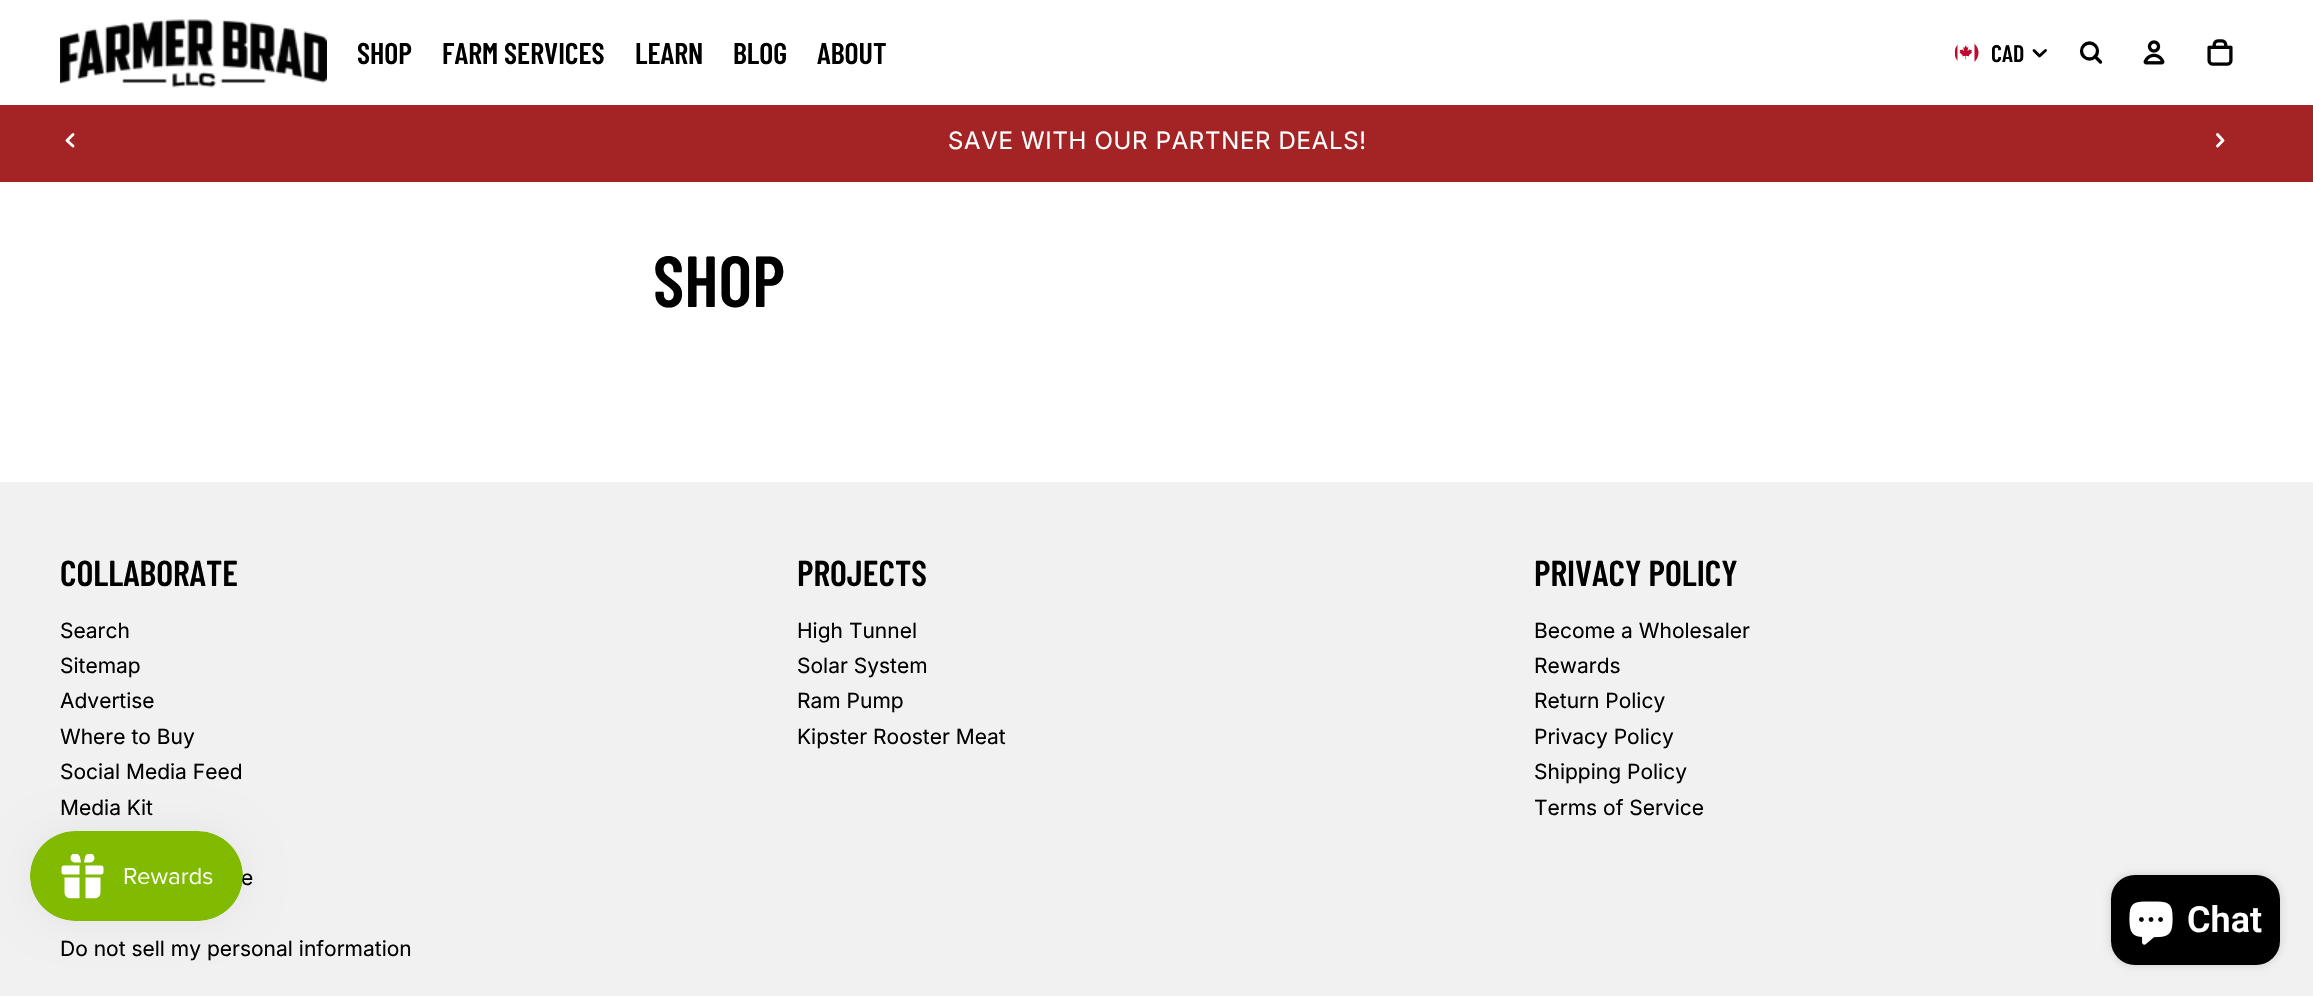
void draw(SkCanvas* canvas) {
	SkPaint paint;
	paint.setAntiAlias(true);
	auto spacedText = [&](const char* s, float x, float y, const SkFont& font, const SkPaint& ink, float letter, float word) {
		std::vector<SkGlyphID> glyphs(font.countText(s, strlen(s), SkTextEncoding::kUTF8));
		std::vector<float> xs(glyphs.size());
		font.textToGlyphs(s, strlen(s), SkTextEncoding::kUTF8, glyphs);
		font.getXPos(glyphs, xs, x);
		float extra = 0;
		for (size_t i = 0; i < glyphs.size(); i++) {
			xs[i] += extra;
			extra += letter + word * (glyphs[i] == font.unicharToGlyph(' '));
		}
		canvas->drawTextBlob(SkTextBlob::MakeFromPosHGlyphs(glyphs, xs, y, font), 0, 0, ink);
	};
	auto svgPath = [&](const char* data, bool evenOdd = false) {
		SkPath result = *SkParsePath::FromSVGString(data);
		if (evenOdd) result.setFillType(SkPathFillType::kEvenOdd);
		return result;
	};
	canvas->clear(0xffffffff);
	canvas->drawImageRect(SkImages::DeferredFromEncodedData(SkData::MakeFromFileName("img1.png")), SkRect::MakeXYWH(60, 19, 267, 69), SkSamplingOptions());
	SkFont f1(fontMgr->matchFamilyStyle("Barlow Condensed", SkFontStyle(600, SkFontStyle::kNormal_Width, SkFontStyle::kUpright_Slant)), 30);
	f1.setSubpixel(true);
	paint.setColor(0xff000000);
	canvas->drawString("SHOP", 357, 64, f1, paint);
	canvas->drawString("FARM SERVICES", 442, 64, f1, paint);
	canvas->drawString("LEARN", 635, 64, f1, paint);
	canvas->drawString("BLOG", 733, 64, f1, paint);
	canvas->drawString("ABOUT", 817, 64, f1, paint);
	canvas->drawImageRect(SkImages::DeferredFromEncodedData(SkData::MakeFromFileName("img2.png")), SkRect::MakeXYWH(1955, 43, 24, 19), SkSamplingOptions());
	SkFont f2(fontMgr->matchFamilyStyle("Barlow Condensed", SkFontStyle(600, SkFontStyle::kNormal_Width, SkFontStyle::kUpright_Slant)), 24);
	f2.setSubpixel(true);
	canvas->drawString("CAD", 1991, 62, f2, paint);
	paint.setStroke(true);
	paint.setStrokeWidth(2.9);
	paint.setStrokeCap(SkPaint::kRound_Cap);
	paint.setStrokeJoin(SkPaint::kRound_Join);
	canvas->drawPath(svgPath("M2045.5 50.5L2039.5 56L2034 50.5"), paint);
	paint.setStrokeWidth(3.3);
	paint.setStrokeCap(SkPaint::kButt_Cap);
	paint.setStrokeJoin(SkPaint::kMiter_Join);
	canvas->drawCircle(2089.5, 51, 8, paint);
	paint.setStrokeCap(SkPaint::kRound_Cap);
	paint.setStrokeJoin(SkPaint::kRound_Join);
	canvas->drawPath(svgPath("M2095 56.5L2100.5 62"), paint);
	canvas->drawImageRect(SkImages::DeferredFromEncodedData(SkData::MakeFromFileName("img3.png")), SkRect::MakeXYWH(2143, 40, 22, 25), SkSamplingOptions());
	canvas->drawImageRect(SkImages::DeferredFromEncodedData(SkData::MakeFromFileName("img4.png")), SkRect::MakeXYWH(2207, 39, 26, 27), SkSamplingOptions());
	paint.setStroke(false);
	paint.setColor(0xffa42325);
	canvas->drawRect(SkRect::MakeXYWH(0, 105, 2313, 77), paint);
	SkFont f3(fontMgr->matchFamilyStyle("Inter", SkFontStyle::Normal()), 24);
	f3.setSubpixel(true);
	paint.setColor(0xffffffff);
	spacedText("SAVE WITH OUR PARTNER DEALS!", 948, 149, f3, paint, 0.75, 0);
	paint.setStroke(true);
	paint.setStrokeWidth(2.9);
	canvas->drawPath(svgPath("M73 134.5L67 140.5L73 146"), paint);
	canvas->drawPath(svgPath("M2217.5 134.5L2223 140.5L2217.5 146"), paint);
	SkFont f4(fontMgr->matchFamilyStyle("Barlow Condensed", SkFontStyle(600, SkFontStyle::kNormal_Width, SkFontStyle::kUpright_Slant)), 72);
	f4.setSubpixel(true);
	paint.setStroke(false);
	paint.setColor(0xff000000);
	canvas->drawString("SHOP", 653, 307, f4, paint);
	paint.setColor(0xfff1f1f1);
	canvas->drawRect(SkRect::MakeXYWH(0, 482, 2313, 514), paint);
	SkFont f5(fontMgr->matchFamilyStyle("Barlow Condensed", SkFontStyle(600, SkFontStyle::kNormal_Width, SkFontStyle::kUpright_Slant)), 36);
	f5.setSubpixel(true);
	paint.setColor(0xff000000);
	canvas->drawString("COLLABORATE", 60, 586, f5, paint);
	SkFont f6(fontMgr->matchFamilyStyle("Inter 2", SkFontStyle::Normal()), 21);
	f6.setSubpixel(true);
	canvas->drawString("Search", 60, 638, f6, paint);
	canvas->drawString("Sitemap", 60, 673, f6, paint);
	canvas->drawString("Advertise", 60, 708, f6, paint);
	canvas->drawString("Where to Buy", 60, 744, f6, paint);
	canvas->drawString("Social Media Feed", 60, 779, f6, paint);
	canvas->drawString("Media Kit", 60, 815, f6, paint);
	canvas->drawString("e", 241, 885, f6, paint);
	canvas->drawString("Do not sell my personal information", 60, 956, f6, paint);
	canvas->drawString("PROJECTS", 797, 586, f5, paint);
	canvas->drawString("High Tunnel", 797, 638, f6, paint);
	canvas->drawString("Solar System", 797, 673, f6, paint);
	canvas->drawString("Ram Pump", 797, 708, f6, paint);
	canvas->drawString("Kipster Rooster Meat", 797, 744, f6, paint);
	canvas->drawString("PRIVACY POLICY", 1534, 586, f5, paint);
	canvas->drawString("Become a Wholesaler", 1534, 638, f6, paint);
	canvas->drawString("Rewards", 1534, 673, f6, paint);
	canvas->drawString("Return Policy", 1534, 708, f6, paint);
	canvas->drawString("Privacy Policy", 1534, 744, f6, paint);
	canvas->drawString("Shipping Policy", 1534, 779, f6, paint);
	canvas->drawString("Terms of Service", 1534, 815, f6, paint);
	paint.setColor(0x0d000000);
	paint.setMaskFilter(SkMaskFilter::MakeBlur(kNormal_SkBlurStyle, 19));
	canvas->drawRoundRect(SkRect::MakeXYWH(30, 831, 213, 90), 45, 45, paint);
	paint.setMaskFilter(nullptr);
	canvas->drawImageRect(SkImages::DeferredFromEncodedData(SkData::MakeFromFileName("img5.png")), SkRect::MakeXYWH(30, 831, 213, 90), SkSamplingOptions());
	paint.setColor(0x26000000);
	paint.setMaskFilter(SkMaskFilter::MakeBlur(kNormal_SkBlurStyle, 4));
	canvas->drawRoundRect(SkRect::MakeXYWH(2111, 875, 169, 90), 24, 24, paint);
	paint.setMaskFilter(nullptr);
	paint.setColor(0xff000000);
	canvas->drawRoundRect(SkRect::MakeXYWH(2111, 875, 169, 90), 24, 24, paint);
	canvas->drawImageRect(SkImages::DeferredFromEncodedData(SkData::MakeFromFileName("img6.png")), SkRect::MakeXYWH(2129, 901, 44, 44), SkSamplingOptions());
	SkFont f7(fontMgr->matchFamilyStyle("Roboto", SkFontStyle(600, SkFontStyle::kNormal_Width, SkFontStyle::kUpright_Slant)), 36);
	f7.setSubpixel(true);
	paint.setColor(0xffffffff);
	canvas->drawString("Chat", 2187, 932, f7, paint);
}
